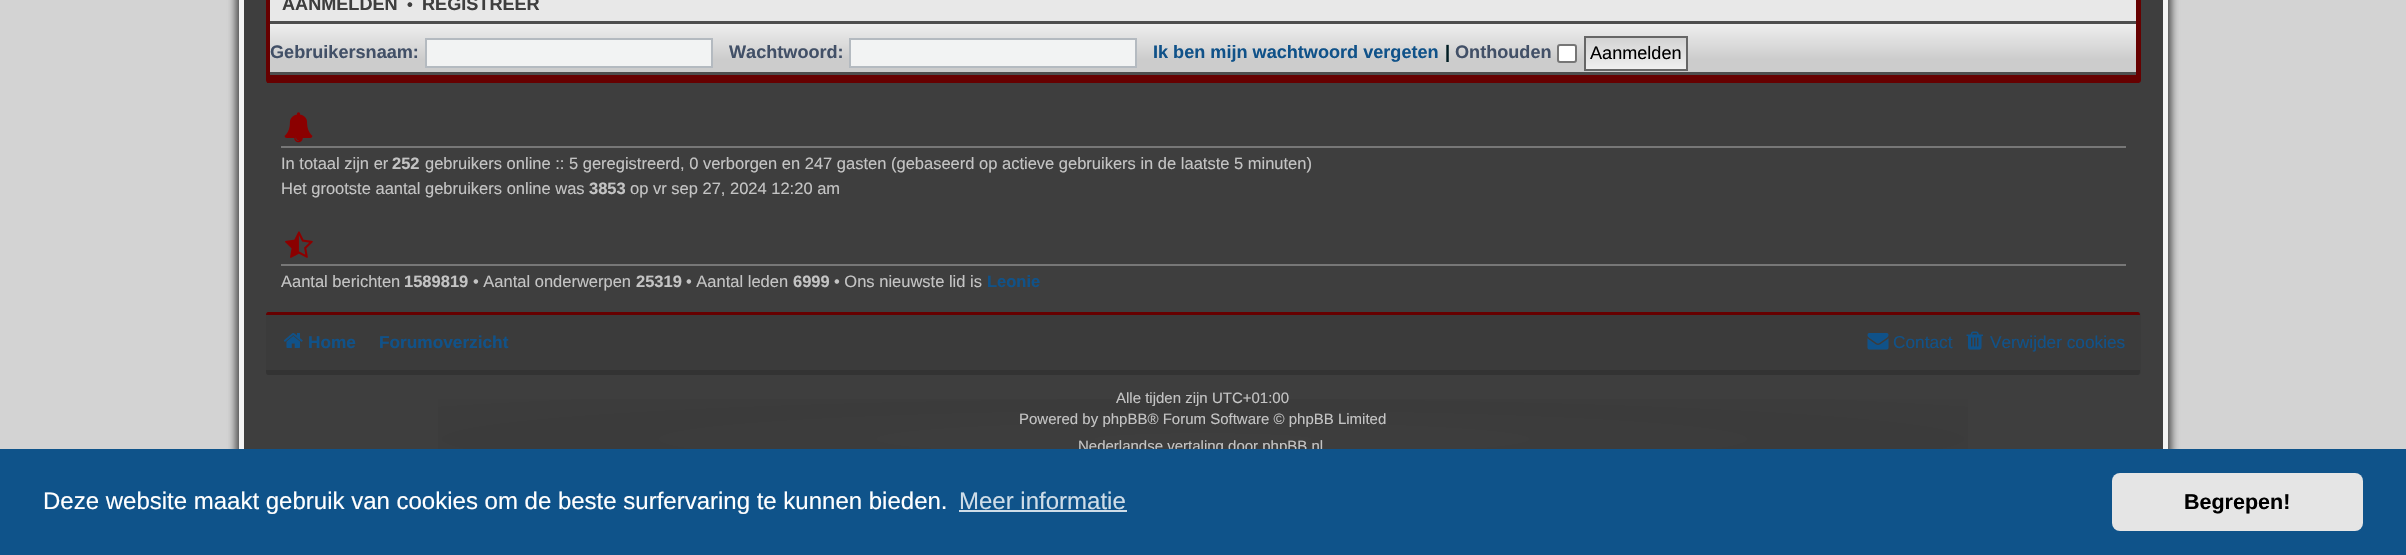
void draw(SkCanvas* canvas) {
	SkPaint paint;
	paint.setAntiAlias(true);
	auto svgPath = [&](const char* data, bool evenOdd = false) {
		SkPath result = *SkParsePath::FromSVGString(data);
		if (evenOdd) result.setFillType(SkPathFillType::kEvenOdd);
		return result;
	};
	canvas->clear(0xffd3d3d3);
	paint.setColor(0xb3020202);
	paint.setMaskFilter(SkMaskFilter::MakeBlur(kNormal_SkBlurStyle, 4.5));
	canvas->drawRoundRect(SkRect::MakeXYWH(236, -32, 1935, 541), 18, 18, paint);
	paint.setMaskFilter(nullptr);
	paint.setColor(0xff3e3e3e);
	canvas->drawRect(SkRect::MakeXYWH(244, 0, 1919, 449), paint);
	paint.setStroke(true);
	paint.setStrokeWidth(5);
	paint.setColor(0xfff4f4f4);
	canvas->drawRect(SkRect::MakeXYWH(241.5, -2.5, 1924, 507), paint);
	paint.setStroke(false);
	paint.setColor(0xff660000);
	canvas->drawRoundRect(SkRect::MakeXYWH(266, -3, 1875, 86), 3, 3, paint);
	canvas->drawRect(SkRect::MakeXYWH(267, 82, 1872, 1), paint);
	paint.setColor(0xffe8e8e8);
	canvas->drawRect(SkRect::MakeXYWH(270, 0, 1866, 21), paint);
	SkFont f1(fontMgr->matchFamilyStyle("Liberation Sans", SkFontStyle::Bold()), 18.1);
	f1.setSubpixel(true);
	paint.setColor(0xff3e3e3e);
	canvas->drawString("AANMELDEN", 282, 10, f1, paint);
	SkFont f2(fontMgr->matchFamilyStyle("Liberation Sans", SkFontStyle::Bold()), 16.5);
	f2.setSubpixel(true);
	canvas->drawString("•", 407, 10, f2, paint);
	canvas->drawString("REGISTREER", 422, 10, f1, paint);
	{
		const SkColor colors[] = {0xffeeeeee, 0xffcccccc, 0xffcccccc};
		const float stops[] = {0, 0.75, 1};
		const SkPoint ends[] = {{1203, 24}, {1203, 72}};
		paint.setShader(SkGradientShader::MakeLinear(ends, colors, stops, 3, SkTileMode::kClamp));
		paint.setAlpha(255);
	}
	canvas->drawRect(SkRect::MakeXYWH(270, 24, 1866, 48), paint);
	paint.setShader(nullptr);
	paint.setColor(0xff4e4e4e);
	canvas->drawRect(SkRect::MakeXYWH(270, 21, 1866, 3), paint);
	canvas->drawRect(SkRect::MakeXYWH(270, 72, 1866, 3), paint);
	paint.setColor(0xff425067);
	canvas->drawString("Gebruikersnaam:", 270, 58, f1, paint);
	paint.setColor(0xfff2f3f3);
	canvas->drawRect(SkRect::MakeXYWH(426, 39, 286, 28), paint);
	paint.setStroke(true);
	paint.setStrokeWidth(2);
	paint.setColor(0xffb4bac0);
	canvas->drawRect(SkRect::MakeXYWH(426, 39, 286, 28), paint);
	paint.setStroke(false);
	paint.setColor(0xff425067);
	canvas->drawString("Wachtwoord:", 729, 58, f1, paint);
	paint.setColor(0xfff2f3f3);
	canvas->drawRect(SkRect::MakeXYWH(850, 39, 286, 28), paint);
	paint.setStroke(true);
	paint.setColor(0xffb4bac0);
	canvas->drawRect(SkRect::MakeXYWH(850, 39, 286, 28), paint);
	paint.setStroke(false);
	paint.setColor(0xff105289);
	canvas->drawString("Ik ben mijn wachtwoord vergeten", 1153, 58, f1, paint);
	paint.setColor(0xff001d23);
	canvas->drawString("|", 1445, 58, f1, paint);
	paint.setColor(0xff425067);
	canvas->drawString("Onthouden", 1455, 58, f1, paint);
	paint.setColor(0xffffffff);
	canvas->drawRoundRect(SkRect::MakeXYWH(1558, 45, 18, 17), 2, 2, paint);
	paint.setStroke(true);
	paint.setColor(0xff767676);
	canvas->drawRoundRect(SkRect::MakeXYWH(1558, 45, 18, 17), 2, 2, paint);
	paint.setStroke(false);
	{
		const SkColor colors[] = {0xffd2d2d2, 0xffefefef};
		const float stops[] = {0, 1};
		const SkPoint ends[] = {{1636, 37}, {1636, 69}};
		paint.setShader(SkGradientShader::MakeLinear(ends, colors, stops, 2, SkTileMode::kClamp));
		paint.setAlpha(255);
	}
	canvas->drawRect(SkRect::MakeXYWH(1586, 38, 100, 31), paint);
	paint.setStroke(true);
	paint.setShader(nullptr);
	paint.setColor(0xff666666);
	canvas->drawRect(SkRect::MakeXYWH(1585, 37, 102, 33), paint);
	SkFont f3(fontMgr->matchFamilyStyle("Liberation Sans", SkFontStyle::Normal()), 18.1);
	f3.setSubpixel(true);
	paint.setStroke(false);
	paint.setColor(0xff000000);
	canvas->drawString("Aanmelden", 1590, 59, f3, paint);
	paint.setColor(0xff777777);
	canvas->drawRect(SkRect::MakeXYWH(281, 146, 1845, 2), paint);
	canvas->drawImageRect(SkImages::DeferredFromEncodedData(SkData::MakeFromFileName("img1.png")), SkRect::MakeXYWH(284, 112, 29, 31), SkSamplingOptions());
	SkFont f4(fontMgr->matchFamilyStyle("Liberation Sans", SkFontStyle::Normal()), 16.5);
	f4.setSubpixel(true);
	paint.setColor(0xffc4c4c4);
	canvas->drawString("In totaal zijn er", 281, 169, f4, paint);
	canvas->drawString("252", 392, 169, f2, paint);
	canvas->drawString("gebruikers online :: 5 geregistreerd, 0 verborgen en 247 gasten (gebaseerd op actieve gebruikers in de laatste 5 minuten)", 425, 169, f4, paint);
	canvas->drawString("Het grootste aantal gebruikers online was", 281, 194, f4, paint);
	canvas->drawString("3853", 589, 194, f2, paint);
	canvas->drawString("op vr sep 27, 2024 12:20 am", 630, 194, f4, paint);
	paint.setColor(0xff777777);
	canvas->drawRect(SkRect::MakeXYWH(281, 264, 1845, 2), paint);
	canvas->drawImageRect(SkImages::DeferredFromEncodedData(SkData::MakeFromFileName("img2.png")), SkRect::MakeXYWH(285, 231, 28, 27), SkSamplingOptions());
	paint.setColor(0xffc4c4c4);
	canvas->drawString("Aantal berichten", 281, 287, f4, paint);
	canvas->drawString("1589819", 404, 287, f2, paint);
	canvas->drawString("• Aantal onderwerpen", 473, 287, f4, paint);
	canvas->drawString("25319", 636, 287, f2, paint);
	canvas->drawString("• Aantal leden", 686, 287, f4, paint);
	canvas->drawString("6999", 793, 287, f2, paint);
	canvas->drawString("• Ons nieuwste lid is", 834, 287, f4, paint);
	paint.setColor(0xff105289);
	canvas->drawString("Leonie", 987, 287, f2, paint);
	paint.setColor(0xff3b3b3b);
	canvas->drawRoundRect(SkRect::MakeXYWH(266, 312, 1875, 63), 3, 3, paint);
	paint.setColor(0xff660000);
	canvas->drawPath(svgPath("M268 312C267 312 266 313 266 315H2140C2140 313 2139 312 2138 312Z"), paint);
	paint.setColor(0xff333333);
	canvas->drawPath(svgPath("M2140 372V370H266V372C266 374 267 375 268 375H2138C2139 375 2140 374 2140 372Z"), paint);
	canvas->drawImageRect(SkImages::DeferredFromEncodedData(SkData::MakeFromFileName("img3.png")), SkRect::MakeXYWH(283, 333, 20, 15), SkSamplingOptions());
	SkFont f5(fontMgr->matchFamilyStyle("Liberation Sans", SkFontStyle::Bold()), 17.25);
	f5.setSubpixel(true);
	paint.setColor(0xff105289);
	canvas->drawString("Home", 308, 348, f5, paint);
	canvas->drawString("Forumoverzicht", 379, 348, f5, paint);
	canvas->drawImageRect(SkImages::DeferredFromEncodedData(SkData::MakeFromFileName("img4.png")), SkRect::MakeXYWH(1867, 333, 22, 17), SkSamplingOptions());
	SkFont f6(fontMgr->matchFamilyStyle("Liberation Sans", SkFontStyle::Normal()), 17.25);
	f6.setSubpixel(true);
	canvas->drawString("Contact", 1893, 348, f6, paint);
	canvas->drawImageRect(SkImages::DeferredFromEncodedData(SkData::MakeFromFileName("img5.png")), SkRect::MakeXYWH(1966, 331, 17, 19), SkSamplingOptions());
	canvas->drawString("Verwijder cookies", 1990, 348, f6, paint);
	{
		const SkColor colors[] = {0xff3e3e3e, 0xff3b3b3b, 0xff3e3e3e};
		const float stops[] = {0, 0.5, 1};
		SkMatrix m = SkMatrix::Translate(1203, 439).preScale(1305, 69);
		paint.setShader(SkGradientShader::MakeRadial({0, 0}, 1, colors, stops, 3, SkTileMode::kClamp, 0, &m));
		paint.setAlpha(255);
	}
	canvas->drawRect(SkRect::MakeXYWH(438, 399, 1530, 50), paint);
	SkFont f7(fontMgr->matchFamilyStyle("Liberation Sans", SkFontStyle::Normal()), 15);
	f7.setSubpixel(true);
	paint.setShader(nullptr);
	paint.setColor(0xffc4c4c4);
	canvas->drawString("Alle tijden zijn UTC+01:00", 1116, 403, f7, paint);
	canvas->drawString("Powered by phpBB® Forum Software © phpBB Limited", 1019, 424, f7, paint);
	canvas->drawString("Nederlandse vertaling door phpBB.nl", 1078, 451, f7, paint);
	paint.setColor(0xff0f538a);
	canvas->drawRect(SkRect::MakeXYWH(0, 449, 2406, 106), paint);
	SkFont f8(fontMgr->matchFamilyStyle("Liberation Sans", SkFontStyle::Normal()), 24);
	f8.setSubpixel(true);
	paint.setColor(0xffffffff);
	canvas->drawString("Deze website maakt gebruik van cookies om de beste surfervaring te kunnen bieden.", 43, 509, f8, paint);
	paint.setColor(0xffcfdde8);
	canvas->drawString("Meer informatie", 959, 509, f8, paint);
	canvas->drawRect(SkRect::MakeXYWH(959, 510, 168, 2), paint);
	paint.setColor(0xffe5e5e5);
	canvas->drawRoundRect(SkRect::MakeXYWH(2112, 473, 251, 58), 8, 8, paint);
	SkFont f9(fontMgr->matchFamilyStyle("Liberation Sans", SkFontStyle::Bold()), 21.5);
	f9.setSubpixel(true);
	paint.setColor(0xff000000);
	canvas->drawString("Begrepen!", 2184, 509, f9, paint);
}
